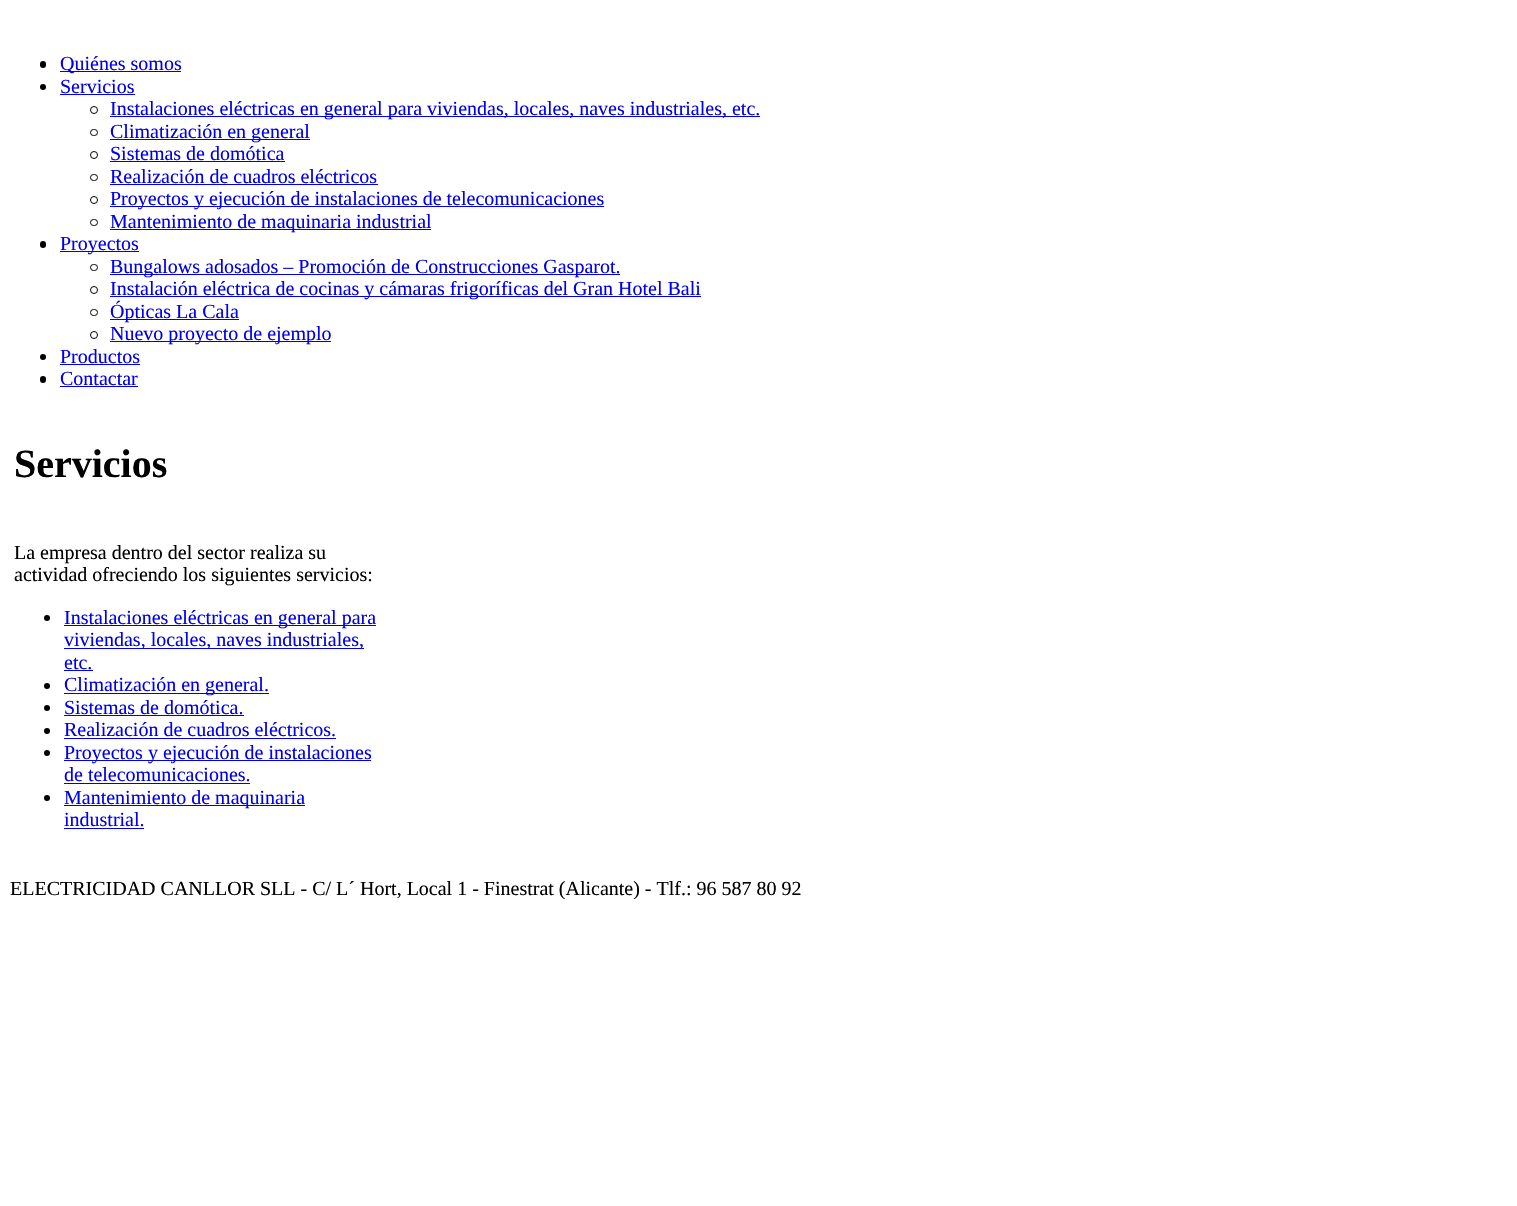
void draw(SkCanvas* canvas) {
	SkPaint paint;
	paint.setAntiAlias(true);
	canvas->clear(0xffffffff);
	paint.setColor(0xff000000);
	canvas->drawRoundRect(SkRect::MakeXYWH(40, 61, 6, 7), 3, 3, paint);
	paint.setColor(0xff0000ee);
	canvas->drawRect(SkRect::MakeXYWH(60, 71, 121, 1), paint);
	SkFont f1(fontMgr->matchFamilyStyle("Liberation Serif", SkFontStyle::Normal()), 20);
	f1.setSubpixel(true);
	canvas->drawString("Quiénes somos", 60, 70, f1, paint);
	paint.setColor(0xff000000);
	canvas->drawCircle(43, 87, 3, paint);
	paint.setColor(0xff0000ee);
	canvas->drawString("Servicios", 60, 93, f1, paint);
	canvas->drawRect(SkRect::MakeXYWH(60, 94, 75, 1), paint);
	paint.setStroke(true);
	paint.setStrokeWidth(1);
	paint.setColor(0xff000000);
	canvas->drawCircle(94, 110, 3.5, paint);
	paint.setStroke(false);
	paint.setColor(0xff0000ee);
	canvas->drawRect(SkRect::MakeXYWH(110, 116, 650, 1), paint);
	canvas->drawString("Instalaciones eléctricas en general para viviendas, locales, naves industriales, etc.", 110, 115, f1, paint);
	paint.setStroke(true);
	paint.setColor(0xff000000);
	canvas->drawRoundRect(SkRect::MakeXYWH(90.5, 129.5, 7, 6), 3, 3, paint);
	paint.setStroke(false);
	paint.setColor(0xff0000ee);
	canvas->drawRect(SkRect::MakeXYWH(110, 139, 200, 1), paint);
	canvas->drawString("Climatización en general", 110, 138, f1, paint);
	paint.setStroke(true);
	paint.setColor(0xff000000);
	canvas->drawCircle(94, 155, 3.5, paint);
	paint.setStroke(false);
	paint.setColor(0xff0000ee);
	canvas->drawString("Sistemas de domótica", 110, 160, f1, paint);
	canvas->drawRect(SkRect::MakeXYWH(110, 161, 175, 1), paint);
	paint.setStroke(true);
	paint.setColor(0xff000000);
	canvas->drawRoundRect(SkRect::MakeXYWH(90.5, 174.5, 7, 6), 3, 3, paint);
	paint.setStroke(false);
	paint.setColor(0xff0000ee);
	canvas->drawString("Realización de cuadros eléctricos", 110, 183, f1, paint);
	canvas->drawRect(SkRect::MakeXYWH(110, 184, 268, 1), paint);
	paint.setStroke(true);
	paint.setColor(0xff000000);
	canvas->drawCircle(94, 200, 3.5, paint);
	paint.setStroke(false);
	paint.setColor(0xff0000ee);
	canvas->drawRect(SkRect::MakeXYWH(110, 206, 494, 1), paint);
	canvas->drawString("Proyectos y ejecución de instalaciones de telecomunicaciones", 110, 205, f1, paint);
	paint.setStroke(true);
	paint.setColor(0xff000000);
	canvas->drawRoundRect(SkRect::MakeXYWH(90.5, 219.5, 7, 6), 3, 3, paint);
	paint.setStroke(false);
	paint.setColor(0xff0000ee);
	canvas->drawRect(SkRect::MakeXYWH(110, 229, 321, 1), paint);
	canvas->drawString("Mantenimiento de maquinaria industrial", 110, 228, f1, paint);
	paint.setColor(0xff000000);
	canvas->drawRoundRect(SkRect::MakeXYWH(40, 241, 6, 7), 3, 3, paint);
	paint.setColor(0xff0000ee);
	canvas->drawRect(SkRect::MakeXYWH(60, 251, 79, 1), paint);
	canvas->drawString("Proyectos", 60, 250, f1, paint);
	paint.setStroke(true);
	paint.setColor(0xff000000);
	canvas->drawRoundRect(SkRect::MakeXYWH(90.5, 264.5, 7, 6), 3, 3, paint);
	paint.setStroke(false);
	paint.setColor(0xff0000ee);
	canvas->drawRect(SkRect::MakeXYWH(110, 274, 510, 1), paint);
	canvas->drawString("Bungalows adosados – Promoción de Construcciones Gasparot.", 110, 273, f1, paint);
	paint.setStroke(true);
	paint.setColor(0xff000000);
	canvas->drawCircle(94, 290, 3.5, paint);
	paint.setStroke(false);
	paint.setColor(0xff0000ee);
	canvas->drawRect(SkRect::MakeXYWH(110, 296, 591, 1), paint);
	canvas->drawString("Instalación eléctrica de cocinas y cámaras frigoríficas del Gran Hotel Bali", 110, 295, f1, paint);
	paint.setStroke(true);
	paint.setColor(0xff000000);
	canvas->drawRoundRect(SkRect::MakeXYWH(90.5, 309.5, 7, 6), 3, 3, paint);
	paint.setStroke(false);
	paint.setColor(0xff0000ee);
	canvas->drawRect(SkRect::MakeXYWH(110, 319, 129, 1), paint);
	canvas->drawString("Ópticas La Cala", 110, 318, f1, paint);
	paint.setStroke(true);
	paint.setColor(0xff000000);
	canvas->drawCircle(94, 335, 3.5, paint);
	paint.setStroke(false);
	paint.setColor(0xff0000ee);
	canvas->drawRect(SkRect::MakeXYWH(110, 341, 221, 1), paint);
	canvas->drawString("Nuevo proyecto de ejemplo", 110, 340, f1, paint);
	paint.setColor(0xff000000);
	canvas->drawCircle(43, 357, 3, paint);
	paint.setColor(0xff0000ee);
	canvas->drawString("Productos", 60, 363, f1, paint);
	canvas->drawRect(SkRect::MakeXYWH(60, 364, 80, 1), paint);
	paint.setColor(0xff000000);
	canvas->drawRoundRect(SkRect::MakeXYWH(40, 376, 6, 7), 3, 3, paint);
	paint.setColor(0xff0000ee);
	canvas->drawString("Contactar", 60, 385, f1, paint);
	canvas->drawRect(SkRect::MakeXYWH(60, 386, 78, 1), paint);
	SkFont f2(fontMgr->matchFamilyStyle("Liberation Serif", SkFontStyle::Bold()), 40);
	f2.setSubpixel(true);
	paint.setColor(0xff000000);
	canvas->drawString("Servicios", 14, 477, f2, paint);
	canvas->drawString("La empresa dentro del sector realiza su", 14, 559, f1, paint);
	canvas->drawString("actividad ofreciendo los siguientes servicios:", 14, 581, f1, paint);
	canvas->drawCircle(47, 618, 3, paint);
	paint.setColor(0xff0000ee);
	canvas->drawRect(SkRect::MakeXYWH(64, 625, 312, 1), paint);
	canvas->drawString("Instalaciones eléctricas en general para", 64, 624, f1, paint);
	canvas->drawRect(SkRect::MakeXYWH(64, 648, 300, 1), paint);
	canvas->drawString("viviendas, locales, naves industriales,", 64, 646, f1, paint);
	canvas->drawString("etc.", 64, 669, f1, paint);
	canvas->drawRect(SkRect::MakeXYWH(64, 670, 29, 1), paint);
	paint.setColor(0xff000000);
	canvas->drawCircle(47, 686, 3, paint);
	paint.setColor(0xff0000ee);
	canvas->drawRect(SkRect::MakeXYWH(64, 693, 205, 1), paint);
	canvas->drawString("Climatización en general.", 64, 691, f1, paint);
	paint.setColor(0xff000000);
	canvas->drawCircle(47, 708, 3, paint);
	paint.setColor(0xff0000ee);
	canvas->drawString("Sistemas de domótica.", 64, 714, f1, paint);
	canvas->drawRect(SkRect::MakeXYWH(64, 715, 180, 1), paint);
	paint.setColor(0xff000000);
	canvas->drawCircle(47, 731, 3, paint);
	paint.setColor(0xff0000ee);
	canvas->drawString("Realización de cuadros eléctricos.", 64, 736, f1, paint);
	canvas->drawRect(SkRect::MakeXYWH(64, 738, 272, 1), paint);
	paint.setColor(0xff000000);
	canvas->drawCircle(47, 753, 3, paint);
	paint.setColor(0xff0000ee);
	canvas->drawRect(SkRect::MakeXYWH(64, 760, 307, 1), paint);
	canvas->drawString("Proyectos y ejecución de instalaciones", 64, 759, f1, paint);
	canvas->drawString("de telecomunicaciones.", 64, 781, f1, paint);
	canvas->drawRect(SkRect::MakeXYWH(64, 783, 186, 1), paint);
	paint.setColor(0xff000000);
	canvas->drawCircle(47, 798, 3, paint);
	paint.setColor(0xff0000ee);
	canvas->drawRect(SkRect::MakeXYWH(64, 805, 241, 1), paint);
	canvas->drawString("Mantenimiento de maquinaria", 64, 804, f1, paint);
	canvas->drawString("industrial.", 64, 826, f1, paint);
	canvas->drawRect(SkRect::MakeXYWH(64, 828, 80, 1), paint);
	paint.setColor(0xff000000);
	canvas->drawString("ELECTRICIDAD CANLLOR SLL - C/ L´ Hort, Local 1 - Finestrat (Alicante) - Tlf.: 96 587 80 92", 10, 895, f1, paint);
}
